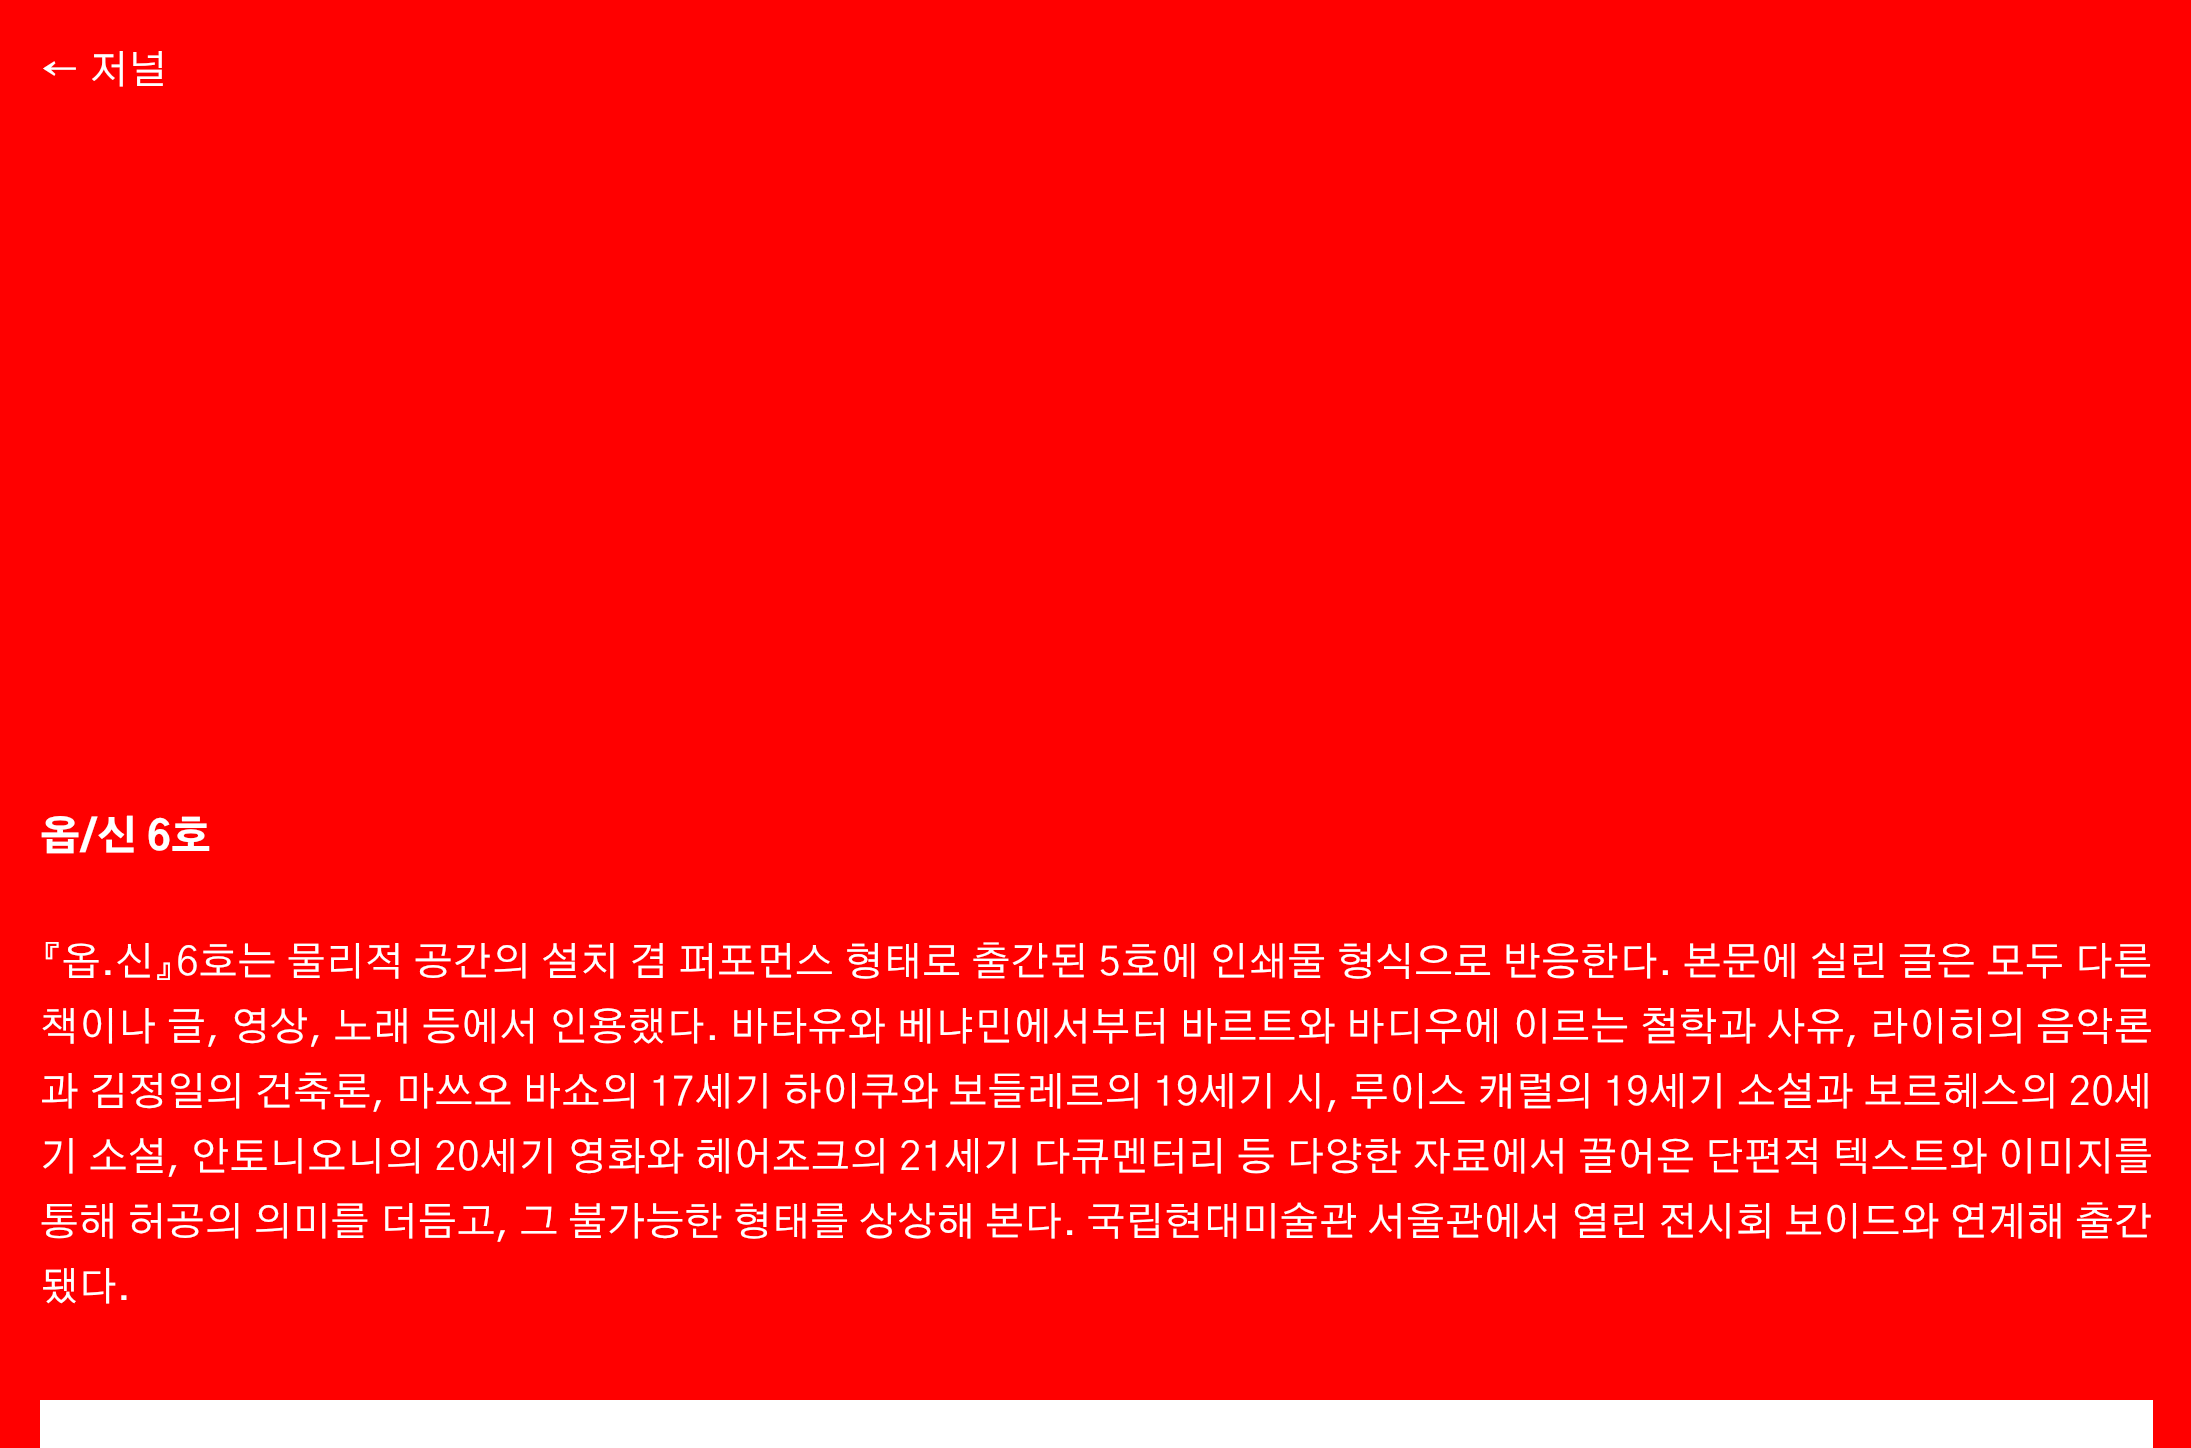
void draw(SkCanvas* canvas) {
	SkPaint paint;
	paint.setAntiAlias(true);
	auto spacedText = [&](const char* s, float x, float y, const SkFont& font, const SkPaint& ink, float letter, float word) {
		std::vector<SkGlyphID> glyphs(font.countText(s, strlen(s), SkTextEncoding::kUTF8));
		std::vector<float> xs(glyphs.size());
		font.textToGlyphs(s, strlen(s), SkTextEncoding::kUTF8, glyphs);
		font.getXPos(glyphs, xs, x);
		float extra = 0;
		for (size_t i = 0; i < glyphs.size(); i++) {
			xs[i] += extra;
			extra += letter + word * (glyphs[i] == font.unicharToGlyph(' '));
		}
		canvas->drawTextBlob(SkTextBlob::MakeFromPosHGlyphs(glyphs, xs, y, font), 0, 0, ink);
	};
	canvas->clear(0xffff0000);
	SkFont f1(fontMgr->matchFamilyStyle("Gothic A1", SkFontStyle::Normal()), 40);
	f1.setSubpixel(true);
	paint.setColor(0xffffffff);
	canvas->drawString("← 저널", 40, 83, f1, paint);
	SkFont f2(fontMgr->matchFamilyStyle("Gothic A1", SkFontStyle(800, SkFontStyle::kNormal_Width, SkFontStyle::kUpright_Slant)), 40);
	f2.setSubpixel(true);
	canvas->drawString("옵/신 6호", 40, 850, f2, paint);
	spacedText("『옵.신』6호는 물리적 공간의 설치 겸 퍼포먼스 형태로 출간된 5호에 인쇄물 형식으로 반응한다. 본문에 실린 글은 모두 다른", 40, 975, f1, paint, 0.5, 0);
	spacedText("책이나 글, 영상, 노래 등에서 인용했다. 바타유와 베냐민에서부터 바르트와 바디우에 이르는 철학과 사유, 라이히의 음악론", 40, 1040, f1, paint, 0.57, 0);
	spacedText("과 김정일의 건축론, 마쓰오 바쇼의 17세기 하이쿠와 보들레르의 19세기 시, 루이스 캐럴의 19세기 소설과 보르헤스의 20세", 40, 1105, f1, paint, 0.45, 0);
	spacedText("기 소설, 안토니오니의 20세기 영화와 헤어조크의 21세기 다큐멘터리 등 다양한 자료에서 끌어온 단편적 텍스트와 이미지를", 40, 1170, f1, paint, 0.43, 0);
	spacedText("통해 허공의 의미를 더듬고, 그 불가능한 형태를 상상해 본다. 국립현대미술관 서울관에서 열린 전시회 보이드와 연계해 출간", 40, 1235, f1, paint, 0.25, 0);
	canvas->drawString("됐다.", 40, 1300, f1, paint);
	canvas->drawRect(SkRect::MakeXYWH(40, 1400, 2113, 48), paint);
}
